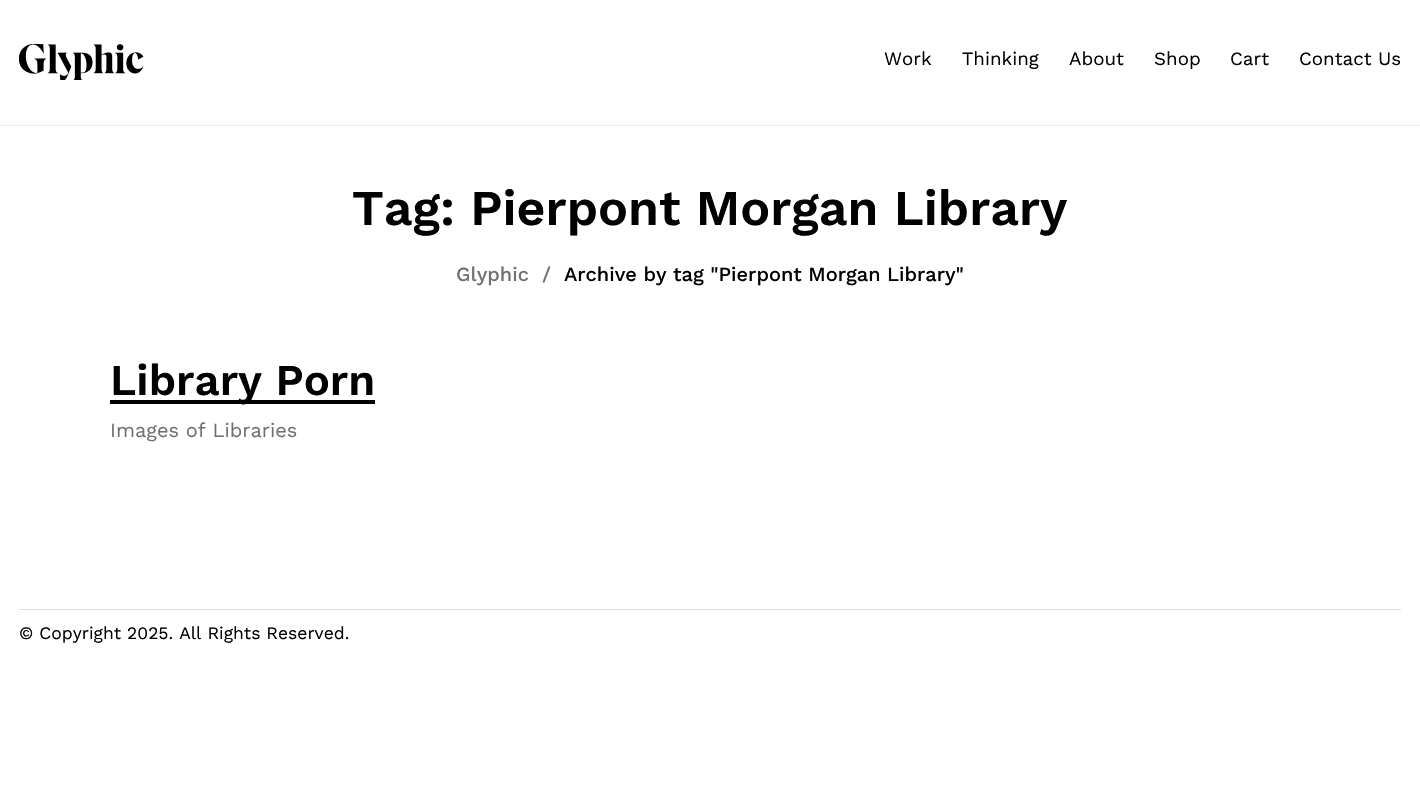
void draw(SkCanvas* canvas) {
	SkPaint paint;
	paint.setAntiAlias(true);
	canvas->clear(0xffffffff);
	canvas->drawImageRect(SkImages::DeferredFromEncodedData(SkData::MakeFromFileName("img1.png")), SkRect::MakeXYWH(19, 44, 125, 36), SkSamplingOptions());
	SkFont f1(fontMgr->matchFamilyStyle("Work Sans", SkFontStyle::Normal()), 18.75);
	f1.setSubpixel(true);
	paint.setColor(0xff010101);
	canvas->drawString("Work", 884, 65, f1, paint);
	canvas->drawString("Thinking", 962, 65, f1, paint);
	canvas->drawString("About", 1069, 65, f1, paint);
	canvas->drawString("Shop", 1154, 65, f1, paint);
	canvas->drawString("Cart", 1230, 65, f1, paint);
	canvas->drawString("Contact Us", 1299, 65, f1, paint);
	paint.setColor(0xffe9e9e9);
	canvas->drawRect(SkRect::MakeXYWH(0, 125, 1420, 1), paint);
	SkFont f2(fontMgr->matchFamilyStyle("Work Sans", SkFontStyle(600, SkFontStyle::kNormal_Width, SkFontStyle::kUpright_Slant)), 50);
	f2.setSubpixel(true);
	paint.setColor(0xff010101);
	canvas->drawString("Tag: Pierpont Morgan Library", 352, 225, f2, paint);
	SkFont f3(fontMgr->matchFamilyStyle("Work Sans", SkFontStyle(500, SkFontStyle::kNormal_Width, SkFontStyle::kUpright_Slant)), 20);
	f3.setSubpixel(true);
	paint.setColor(0xff717171);
	canvas->drawString("Glyphic", 456, 281, f3, paint);
	canvas->drawString("/", 542, 281, f3, paint);
	paint.setColor(0xff010101);
	canvas->drawString("Archive by tag \"Pierpont Morgan Library\"", 564, 281, f3, paint);
	canvas->drawRect(SkRect::MakeXYWH(110, 400, 265, 4), paint);
	SkFont f4(fontMgr->matchFamilyStyle("Work Sans", SkFontStyle(600, SkFontStyle::kNormal_Width, SkFontStyle::kUpright_Slant)), 43.75);
	f4.setSubpixel(true);
	canvas->drawString("Library Porn", 110, 395, f4, paint);
	SkFont f5(fontMgr->matchFamilyStyle("Work Sans", SkFontStyle::Normal()), 20);
	f5.setSubpixel(true);
	paint.setColor(0xff717171);
	canvas->drawString("Images of Libraries", 110, 437, f5, paint);
	paint.setColor(0xffdedede);
	canvas->drawRect(SkRect::MakeXYWH(19, 609, 1382, 1), paint);
	SkFont f6(fontMgr->matchFamilyStyle("Work Sans", SkFontStyle::Normal()), 17.5);
	f6.setSubpixel(true);
	paint.setColor(0xff010101);
	canvas->drawString("© Copyright 2025. All Rights Reserved.", 19, 639, f6, paint);
}
